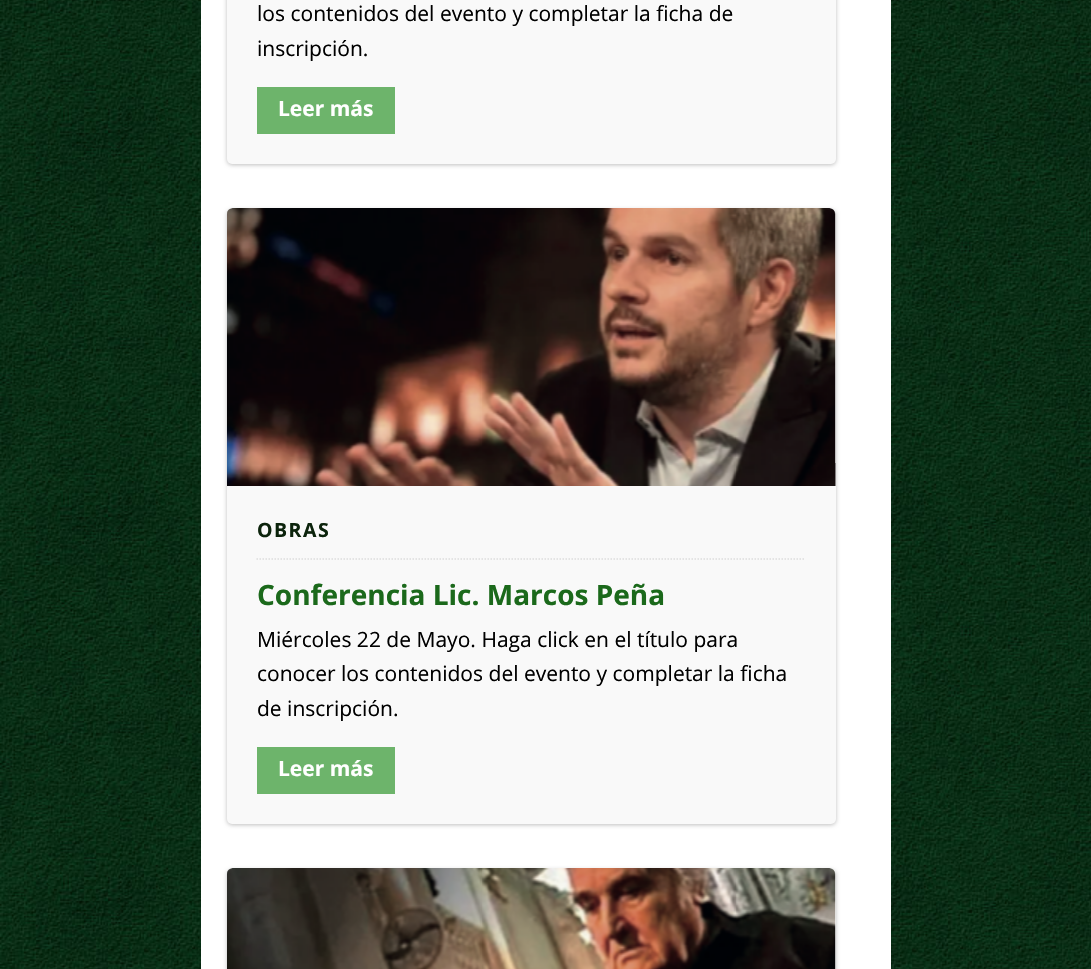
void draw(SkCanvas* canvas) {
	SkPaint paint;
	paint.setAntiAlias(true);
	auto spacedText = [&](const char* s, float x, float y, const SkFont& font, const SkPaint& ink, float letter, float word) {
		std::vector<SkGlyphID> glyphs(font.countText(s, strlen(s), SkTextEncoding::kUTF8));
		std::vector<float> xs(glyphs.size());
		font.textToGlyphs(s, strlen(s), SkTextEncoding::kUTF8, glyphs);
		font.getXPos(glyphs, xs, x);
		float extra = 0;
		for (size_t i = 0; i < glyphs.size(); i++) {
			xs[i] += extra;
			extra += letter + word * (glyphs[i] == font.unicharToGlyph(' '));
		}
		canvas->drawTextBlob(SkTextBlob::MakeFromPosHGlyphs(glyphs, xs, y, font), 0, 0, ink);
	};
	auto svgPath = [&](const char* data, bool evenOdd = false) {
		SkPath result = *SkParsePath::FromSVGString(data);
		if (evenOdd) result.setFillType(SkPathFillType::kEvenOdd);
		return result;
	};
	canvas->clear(0xffffffff);
	canvas->drawImageRect(SkImages::DeferredFromEncodedData(SkData::MakeFromFileName("img1.png")), SkRect::MakeXYWH(0, 0, 1091, 969), SkSamplingOptions());
	paint.setColor(0xffffffff);
	canvas->drawRect(SkRect::MakeXYWH(201, 0, 690, 969), paint);
	paint.setColor(0x40000000);
	paint.setMaskFilter(SkMaskFilter::MakeBlur(kNormal_SkBlurStyle, 2));
	canvas->drawRoundRect(SkRect::MakeXYWH(227, -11, 609, 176), 5, 5, paint);
	paint.setMaskFilter(nullptr);
	paint.setColor(0xfff9f9f9);
	canvas->drawRoundRect(SkRect::MakeXYWH(227, -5, 609, 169), 5, 5, paint);
	SkFont f1(fontMgr->matchFamilyStyle("Open Sans", SkFontStyle::Normal()), 21);
	f1.setSubpixel(true);
	paint.setColor(0xff000000);
	canvas->drawString("los contenidos del evento y completar la ficha de", 257, 21, f1, paint);
	canvas->drawString("inscripción.", 257, 56, f1, paint);
	paint.setColor(0xff6db46b);
	canvas->drawRect(SkRect::MakeXYWH(257, 87, 138, 47), paint);
	SkFont f2(fontMgr->matchFamilyStyle("Open Sans", SkFontStyle::Bold()), 21);
	f2.setSubpixel(true);
	paint.setColor(0xffffffff);
	canvas->drawString("Leer más", 278, 116, f2, paint);
	paint.setColor(0x40000000);
	paint.setMaskFilter(SkMaskFilter::MakeBlur(kNormal_SkBlurStyle, 2));
	canvas->drawRoundRect(SkRect::MakeXYWH(227, 210, 609, 615), 5, 5, paint);
	paint.setMaskFilter(nullptr);
	paint.setColor(0xfff9f9f9);
	canvas->drawRoundRect(SkRect::MakeXYWH(227, 209, 609, 615), 5, 5, paint);
	canvas->drawImageRect(SkImages::DeferredFromEncodedData(SkData::MakeFromFileName("img2.png")), SkRect::MakeXYWH(227, 208, 609, 278), SkSamplingOptions());
	paint.setStroke(true);
	paint.setStrokeWidth(1.5);
	paint.setColor(0xffdddddd);
	paint.setPathEffect(SkDashPathEffect::Make({{1.5f, 1.5f}}, 0));
	canvas->drawPath(svgPath("M256.5 559H805.5"), paint);
	paint.setPathEffect(nullptr);
	SkFont f3(fontMgr->matchFamilyStyle("Open Sans", SkFontStyle::Bold()), 19.5);
	f3.setSubpixel(true);
	paint.setStroke(false);
	paint.setColor(0xff0c240c);
	spacedText("OBRAS", 257, 537, f3, paint, 1.5, 0);
	SkFont f4(fontMgr->matchFamilyStyle("Open Sans", SkFontStyle::Bold()), 28);
	f4.setSubpixel(true);
	paint.setColor(0xff1b691b);
	canvas->drawString("Conferencia Lic. Marcos Peña", 257, 605, f4, paint);
	paint.setColor(0xff000000);
	canvas->drawString("Miércoles 22 de Mayo. Haga click en el título para", 257, 647, f1, paint);
	canvas->drawString("conocer los contenidos del evento y completar la ficha", 257, 681, f1, paint);
	canvas->drawString("de inscripción.", 257, 716, f1, paint);
	paint.setColor(0xff6db46b);
	canvas->drawRect(SkRect::MakeXYWH(257, 747, 138, 47), paint);
	paint.setColor(0xffffffff);
	canvas->drawString("Leer más", 278, 776, f2, paint);
	paint.setColor(0x40000000);
	paint.setMaskFilter(SkMaskFilter::MakeBlur(kNormal_SkBlurStyle, 2));
	canvas->drawRoundRect(SkRect::MakeXYWH(227, 870, 609, 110), 5, 5, paint);
	paint.setMaskFilter(nullptr);
	paint.setColor(0xfff9f9f9);
	canvas->drawRoundRect(SkRect::MakeXYWH(227, 869, 609, 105), 5, 5, paint);
	canvas->drawImageRect(SkImages::DeferredFromEncodedData(SkData::MakeFromFileName("img3.png")), SkRect::MakeXYWH(227, 868, 609, 101), SkSamplingOptions());
}
